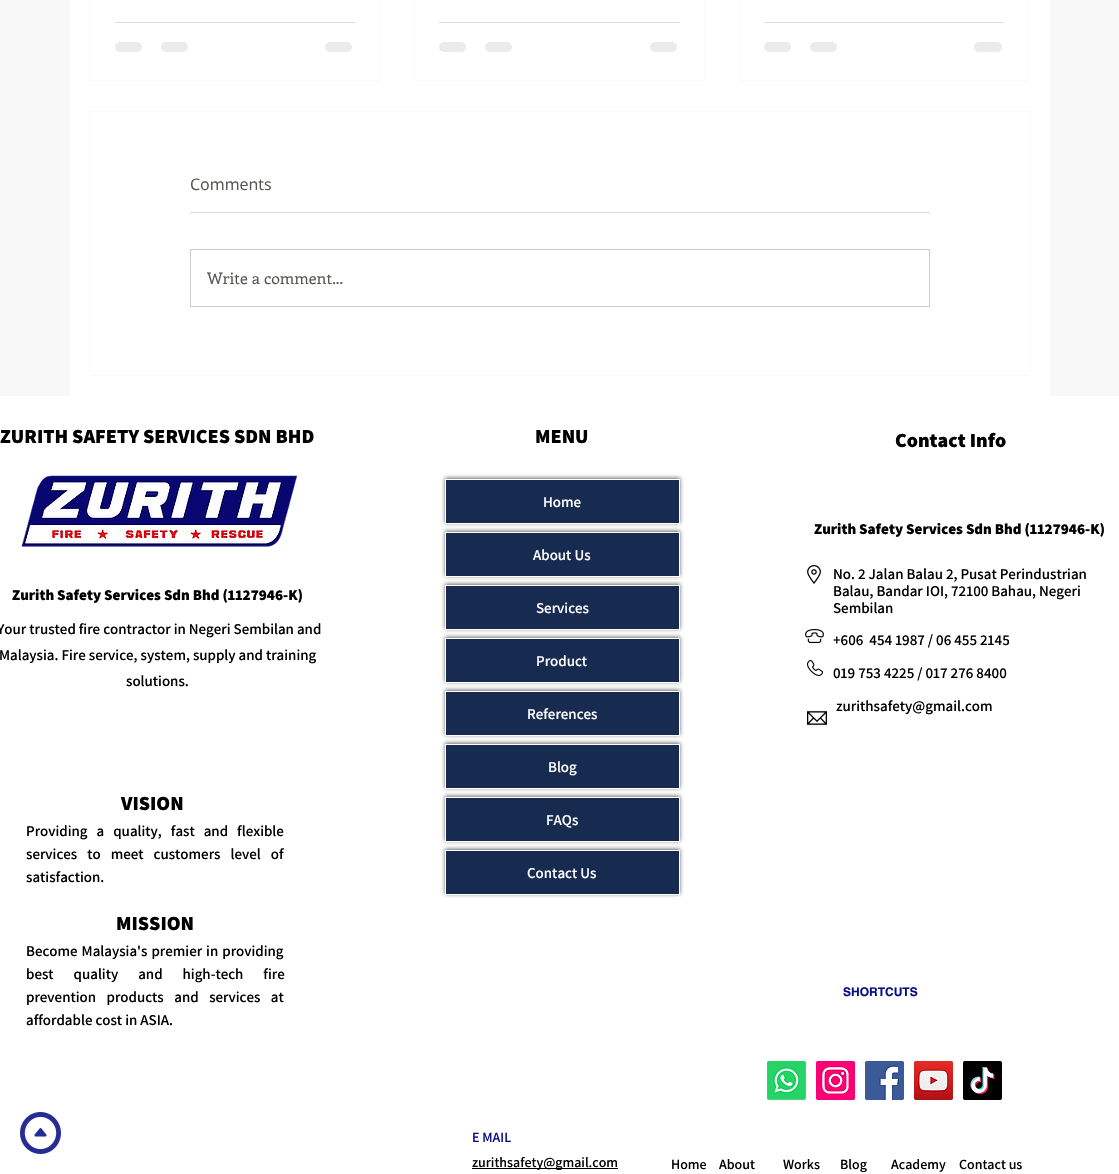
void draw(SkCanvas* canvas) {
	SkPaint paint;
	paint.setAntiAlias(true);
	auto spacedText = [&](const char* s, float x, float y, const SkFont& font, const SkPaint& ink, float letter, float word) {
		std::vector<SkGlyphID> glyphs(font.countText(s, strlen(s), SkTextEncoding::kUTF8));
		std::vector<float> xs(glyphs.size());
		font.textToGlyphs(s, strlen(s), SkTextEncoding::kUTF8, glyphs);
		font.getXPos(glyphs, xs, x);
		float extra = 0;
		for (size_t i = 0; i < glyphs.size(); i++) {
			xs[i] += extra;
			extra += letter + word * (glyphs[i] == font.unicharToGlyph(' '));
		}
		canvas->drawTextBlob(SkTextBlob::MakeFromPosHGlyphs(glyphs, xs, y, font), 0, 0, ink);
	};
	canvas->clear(0xfff8f8f8);
	paint.setColor(0xffffffff);
	canvas->drawRect(SkRect::MakeXYWH(70, 0, 980, 396), paint);
	paint.setStroke(true);
	paint.setStrokeWidth(1);
	paint.setColor(0xfffafafa);
	canvas->drawRect(SkRect::MakeXYWH(90.5, -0.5, 289, 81), paint);
	paint.setStroke(false);
	paint.setColor(0xffdedddc);
	canvas->drawRect(SkRect::MakeXYWH(115, 22, 240, 1), paint);
	paint.setColor(0xffebebea);
	canvas->drawRoundRect(SkRect::MakeXYWH(115, 42, 27, 10), 5, 5, paint);
	canvas->drawRoundRect(SkRect::MakeXYWH(161, 42, 27, 10), 5, 5, paint);
	canvas->drawRoundRect(SkRect::MakeXYWH(325, 42, 27, 10), 5, 5, paint);
	paint.setStroke(true);
	paint.setColor(0xfffafafa);
	canvas->drawRect(SkRect::MakeXYWH(414.5, -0.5, 290, 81), paint);
	paint.setStroke(false);
	paint.setColor(0xffdedddc);
	canvas->drawRect(SkRect::MakeXYWH(439, 22, 241, 1), paint);
	paint.setColor(0xffebebea);
	canvas->drawRoundRect(SkRect::MakeXYWH(439, 42, 27, 10), 5, 5, paint);
	canvas->drawRoundRect(SkRect::MakeXYWH(485, 42, 27, 10), 5, 5, paint);
	canvas->drawRoundRect(SkRect::MakeXYWH(650, 42, 27, 10), 5, 5, paint);
	paint.setStroke(true);
	paint.setColor(0xfffafafa);
	canvas->drawRect(SkRect::MakeXYWH(739.5, -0.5, 289, 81), paint);
	paint.setStroke(false);
	paint.setColor(0xffdedddc);
	canvas->drawRect(SkRect::MakeXYWH(764, 22, 240, 1), paint);
	paint.setColor(0xffebebea);
	canvas->drawRoundRect(SkRect::MakeXYWH(764, 42, 27, 10), 5, 5, paint);
	canvas->drawRoundRect(SkRect::MakeXYWH(810, 42, 27, 10), 5, 5, paint);
	canvas->drawRoundRect(SkRect::MakeXYWH(974, 42, 28, 10), 5, 5, paint);
	paint.setStroke(true);
	paint.setColor(0xfffafafa);
	canvas->drawRect(SkRect::MakeXYWH(90.5, 111.5, 939, 264), paint);
	SkFont f1(fontMgr->matchFamilyStyle("Open Sans", SkFontStyle::Normal()), 16);
	f1.setSubpixel(true);
	paint.setStroke(false);
	paint.setColor(0xff585551);
	canvas->drawString("Comments", 190, 190, f1, paint);
	paint.setColor(0xffdedddc);
	canvas->drawRect(SkRect::MakeXYWH(190, 212, 740, 1), paint);
	paint.setStroke(true);
	paint.setColor(0xffcdcccb);
	canvas->drawRect(SkRect::MakeXYWH(190.5, 249.5, 739, 57), paint);
	SkFont f2(fontMgr->matchFamilyStyle("Enriqueta", SkFontStyle::Normal()), 16);
	f2.setSubpixel(true);
	paint.setStroke(false);
	paint.setColor(0xff585551);
	canvas->drawString("Write a comment...", 207, 284, f2, paint);
	paint.setColor(0xffffffff);
	canvas->drawRect(SkRect::MakeXYWH(0, 396, 1119, 778), paint);
	SkFont f3(fontMgr->matchFamilyStyle("Assistant", SkFontStyle(800, SkFontStyle::kNormal_Width, SkFontStyle::kUpright_Slant)), 20);
	f3.setSubpixel(true);
	paint.setColor(0xff000000);
	canvas->drawString("ZURITH SAFETY SERVICES SDN BHD", 0, 443, f3, paint);
	canvas->drawString("MENU", 535, 443, f3, paint);
	canvas->drawString("Contact Info", 895, 447, f3, paint);
	SkFont f4(fontMgr->matchFamilyStyle("Assistant", SkFontStyle(800, SkFontStyle::kNormal_Width, SkFontStyle::kUpright_Slant)), 15);
	f4.setSubpixel(true);
	canvas->drawString("Zurith Safety Services Sdn Bhd (1127946-K)", 814, 534, f4, paint);
	canvas->drawImageRect(SkImages::DeferredFromEncodedData(SkData::MakeFromFileName("img1.png")), SkRect::MakeXYWH(807, 565, 14, 19), SkSamplingOptions());
	SkFont f5(fontMgr->matchFamilyStyle("Assistant", SkFontStyle(600, SkFontStyle::kNormal_Width, SkFontStyle::kUpright_Slant)), 15);
	f5.setSubpixel(true);
	canvas->drawString("No. 2 Jalan Balau 2, Pusat Perindustrian", 833, 579, f5, paint);
	canvas->drawString("Balau, Bandar IOI, 72100 Bahau, Negeri", 833, 596, f5, paint);
	canvas->drawString("Sembilan", 833, 613, f5, paint);
	canvas->drawString("+606  454 1987 / 06 455 2145", 833, 645, f5, paint);
	canvas->drawString("019 753 4225 / 017 276 8400", 833, 678, f5, paint);
	canvas->drawString("zurithsafety@gmail.com", 836, 711, f5, paint);
	canvas->drawImageRect(SkImages::DeferredFromEncodedData(SkData::MakeFromFileName("img2.png")), SkRect::MakeXYWH(805, 629, 19, 14), SkSamplingOptions());
	canvas->drawImageRect(SkImages::DeferredFromEncodedData(SkData::MakeFromFileName("img3.png")), SkRect::MakeXYWH(807, 660, 16, 16), SkSamplingOptions());
	canvas->drawImageRect(SkImages::DeferredFromEncodedData(SkData::MakeFromFileName("img4.png")), SkRect::MakeXYWH(807, 711, 20, 14), SkSamplingOptions());
	canvas->drawImageRect(SkImages::DeferredFromEncodedData(SkData::MakeFromFileName("img5.png")), SkRect::MakeXYWH(21, 475, 277, 72), SkSamplingOptions());
	paint.setColor(0x99000000);
	paint.setMaskFilter(SkMaskFilter::MakeBlur(kNormal_SkBlurStyle, 2));
	canvas->drawRect(SkRect::MakeXYWH(445, 478, 235, 45), paint);
	paint.setMaskFilter(nullptr);
	paint.setColor(0xff172a4f);
	canvas->drawRect(SkRect::MakeXYWH(445.5, 479.5, 234, 44), paint);
	paint.setStroke(true);
	paint.setColor(0xffffffff);
	canvas->drawRect(SkRect::MakeXYWH(445.5, 479.5, 234, 44), paint);
	paint.setStroke(false);
	canvas->drawString("Home", 543, 507, f5, paint);
	paint.setColor(0x99000000);
	paint.setMaskFilter(SkMaskFilter::MakeBlur(kNormal_SkBlurStyle, 2));
	canvas->drawRect(SkRect::MakeXYWH(445, 531, 235, 45), paint);
	paint.setMaskFilter(nullptr);
	paint.setColor(0xff172a4f);
	canvas->drawRect(SkRect::MakeXYWH(445.5, 532.5, 234, 44), paint);
	paint.setStroke(true);
	paint.setColor(0xffffffff);
	canvas->drawRect(SkRect::MakeXYWH(445.5, 532.5, 234, 44), paint);
	paint.setStroke(false);
	canvas->drawString("About Us", 533, 560, f5, paint);
	paint.setColor(0x99000000);
	paint.setMaskFilter(SkMaskFilter::MakeBlur(kNormal_SkBlurStyle, 2));
	canvas->drawRect(SkRect::MakeXYWH(445, 584, 235, 45), paint);
	paint.setMaskFilter(nullptr);
	paint.setColor(0xff172a4f);
	canvas->drawRect(SkRect::MakeXYWH(445.5, 585.5, 234, 44), paint);
	paint.setStroke(true);
	paint.setColor(0xffffffff);
	canvas->drawRect(SkRect::MakeXYWH(445.5, 585.5, 234, 44), paint);
	paint.setStroke(false);
	canvas->drawString("Services", 536, 613, f5, paint);
	paint.setColor(0x99000000);
	paint.setMaskFilter(SkMaskFilter::MakeBlur(kNormal_SkBlurStyle, 2));
	canvas->drawRect(SkRect::MakeXYWH(445, 637, 235, 45), paint);
	paint.setMaskFilter(nullptr);
	paint.setColor(0xff172a4f);
	canvas->drawRect(SkRect::MakeXYWH(445.5, 638.5, 234, 44), paint);
	paint.setStroke(true);
	paint.setColor(0xffffffff);
	canvas->drawRect(SkRect::MakeXYWH(445.5, 638.5, 234, 44), paint);
	paint.setStroke(false);
	canvas->drawString("Product", 536, 666, f5, paint);
	paint.setColor(0x99000000);
	paint.setMaskFilter(SkMaskFilter::MakeBlur(kNormal_SkBlurStyle, 2));
	canvas->drawRect(SkRect::MakeXYWH(445, 690, 235, 45), paint);
	paint.setMaskFilter(nullptr);
	paint.setColor(0xff172a4f);
	canvas->drawRect(SkRect::MakeXYWH(445.5, 691.5, 234, 44), paint);
	paint.setStroke(true);
	paint.setColor(0xffffffff);
	canvas->drawRect(SkRect::MakeXYWH(445.5, 691.5, 234, 44), paint);
	paint.setStroke(false);
	canvas->drawString("References", 527, 719, f5, paint);
	paint.setColor(0x99000000);
	paint.setMaskFilter(SkMaskFilter::MakeBlur(kNormal_SkBlurStyle, 2));
	canvas->drawRect(SkRect::MakeXYWH(445, 743, 235, 45), paint);
	paint.setMaskFilter(nullptr);
	paint.setColor(0xff172a4f);
	canvas->drawRect(SkRect::MakeXYWH(445.5, 744.5, 234, 44), paint);
	paint.setStroke(true);
	paint.setColor(0xffffffff);
	canvas->drawRect(SkRect::MakeXYWH(445.5, 744.5, 234, 44), paint);
	paint.setStroke(false);
	canvas->drawString("Blog", 548, 772, f5, paint);
	paint.setColor(0x99000000);
	paint.setMaskFilter(SkMaskFilter::MakeBlur(kNormal_SkBlurStyle, 2));
	canvas->drawRect(SkRect::MakeXYWH(445, 796, 235, 45), paint);
	paint.setMaskFilter(nullptr);
	paint.setColor(0xff172a4f);
	canvas->drawRect(SkRect::MakeXYWH(445.5, 797.5, 234, 44), paint);
	paint.setStroke(true);
	paint.setColor(0xffffffff);
	canvas->drawRect(SkRect::MakeXYWH(445.5, 797.5, 234, 44), paint);
	paint.setStroke(false);
	canvas->drawString("FAQs", 546, 825, f5, paint);
	paint.setColor(0x99000000);
	paint.setMaskFilter(SkMaskFilter::MakeBlur(kNormal_SkBlurStyle, 2));
	canvas->drawRect(SkRect::MakeXYWH(445, 849, 235, 45), paint);
	paint.setMaskFilter(nullptr);
	paint.setColor(0xff172a4f);
	canvas->drawRect(SkRect::MakeXYWH(445.5, 850.5, 234, 44), paint);
	paint.setStroke(true);
	paint.setColor(0xffffffff);
	canvas->drawRect(SkRect::MakeXYWH(445.5, 850.5, 234, 44), paint);
	paint.setStroke(false);
	canvas->drawString("Contact Us", 527, 878, f5, paint);
	paint.setColor(0xff000000);
	canvas->drawString("Zurith Safety Services Sdn Bhd (1127946-K)", 12, 600, f4, paint);
	canvas->drawString("Your trusted fire contractor in Negeri Sembilan and", -3, 634, f5, paint);
	canvas->drawString("Malaysia. Fire service, system, supply and training", -1, 660, f5, paint);
	canvas->drawString("solutions.", 126, 686, f5, paint);
	canvas->drawString("VISION", 121, 810, f3, paint);
	spacedText("Providing a quality, fast and flexible", 26, 836, f5, paint, 0, 6);
	spacedText("services to meet customers level of", 26, 859, f5, paint, 0, 7);
	canvas->drawString("satisfaction.", 26, 882, f5, paint);
	canvas->drawString("MISSION", 116, 930, f3, paint);
	spacedText("Become Malaysia's premier in providing", 26, 956, f5, paint, 0, 1);
	spacedText("best quality and high-tech fire", 26, 979, f5, paint, 0, 17);
	spacedText("prevention products and services at", 26, 1002, f5, paint, 0, 7.5);
	canvas->drawString("affordable cost in ASIA.", 26, 1025, f5, paint);
	SkFont f6(fontMgr->matchFamilyStyle("helvetica", SkFontStyle::Bold()), 12);
	f6.setSubpixel(true);
	paint.setColor(0xff070d85);
	canvas->drawString("SHORTCUTS", 843, 996, f6, paint);
	canvas->drawImageRect(SkImages::DeferredFromEncodedData(SkData::MakeFromFileName("img6.png")), SkRect::MakeXYWH(767, 1061, 39, 39), SkSamplingOptions());
	canvas->drawImageRect(SkImages::DeferredFromEncodedData(SkData::MakeFromFileName("img7.png")), SkRect::MakeXYWH(816, 1061, 39, 39), SkSamplingOptions());
	canvas->drawImageRect(SkImages::DeferredFromEncodedData(SkData::MakeFromFileName("img8.png")), SkRect::MakeXYWH(865, 1061, 39, 39), SkSamplingOptions());
	canvas->drawImageRect(SkImages::DeferredFromEncodedData(SkData::MakeFromFileName("img9.png")), SkRect::MakeXYWH(914, 1061, 39, 39), SkSamplingOptions());
	canvas->drawImageRect(SkImages::DeferredFromEncodedData(SkData::MakeFromFileName("img10.png")), SkRect::MakeXYWH(963, 1061, 39, 39), SkSamplingOptions());
	SkFont f7(fontMgr->matchFamilyStyle("Assistant", SkFontStyle(600, SkFontStyle::kNormal_Width, SkFontStyle::kUpright_Slant)), 14);
	f7.setSubpixel(true);
	canvas->drawString("E MAIL", 472, 1142, f7, paint);
	paint.setColor(0xff000000);
	canvas->drawRect(SkRect::MakeXYWH(472, 1168, 146, 1), paint);
	canvas->drawString("zurithsafety@gmail.com", 472, 1167, f7, paint);
	canvas->drawString("Home", 671, 1169, f7, paint);
	canvas->drawString("About", 719, 1169, f7, paint);
	canvas->drawString("Works", 783, 1169, f7, paint);
	canvas->drawString("Blog", 840, 1169, f7, paint);
	canvas->drawString("Academy", 891, 1169, f7, paint);
	canvas->drawString("Contact us", 959, 1169, f7, paint);
	canvas->drawImageRect(SkImages::DeferredFromEncodedData(SkData::MakeFromFileName("img11.png")), SkRect::MakeXYWH(20, 1112, 41, 42), SkSamplingOptions());
}
